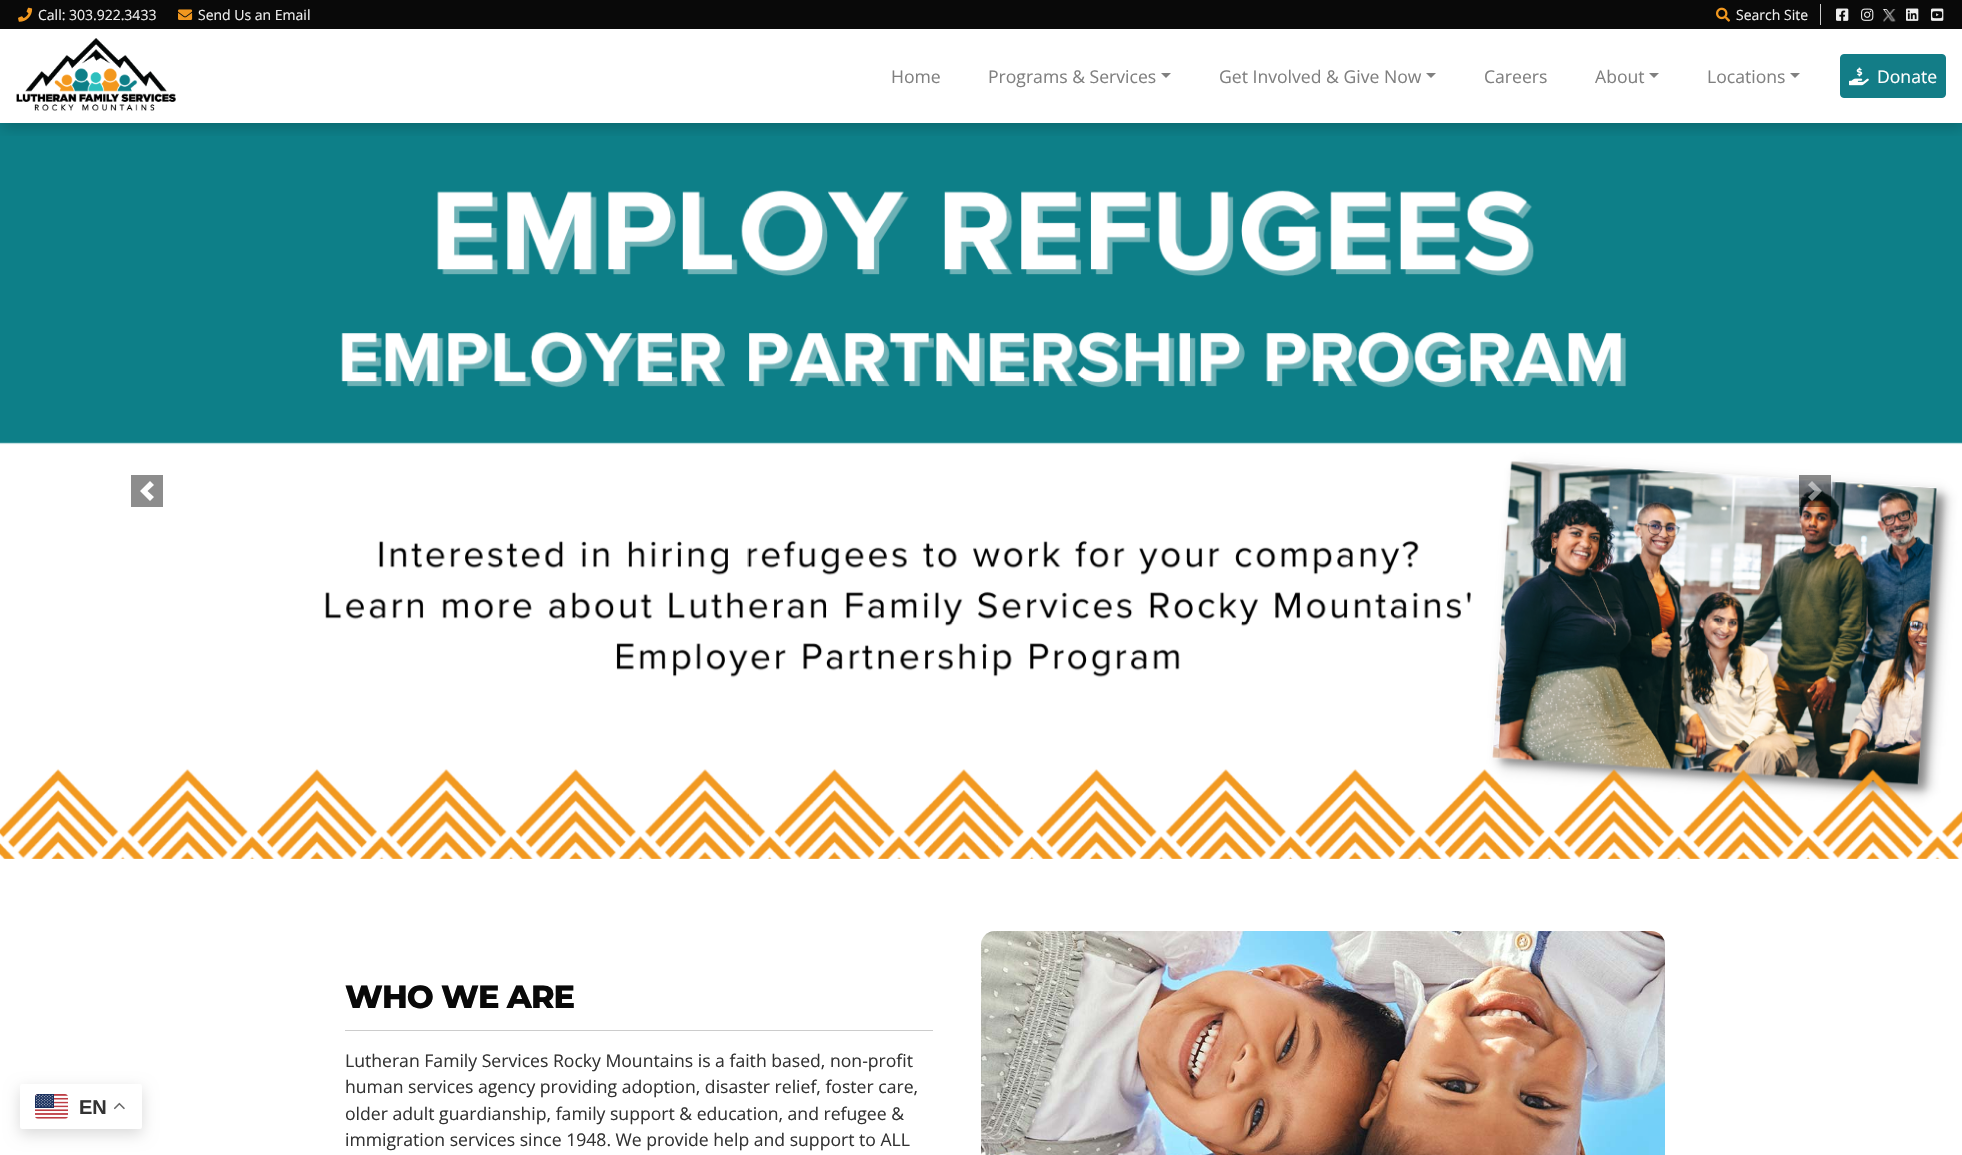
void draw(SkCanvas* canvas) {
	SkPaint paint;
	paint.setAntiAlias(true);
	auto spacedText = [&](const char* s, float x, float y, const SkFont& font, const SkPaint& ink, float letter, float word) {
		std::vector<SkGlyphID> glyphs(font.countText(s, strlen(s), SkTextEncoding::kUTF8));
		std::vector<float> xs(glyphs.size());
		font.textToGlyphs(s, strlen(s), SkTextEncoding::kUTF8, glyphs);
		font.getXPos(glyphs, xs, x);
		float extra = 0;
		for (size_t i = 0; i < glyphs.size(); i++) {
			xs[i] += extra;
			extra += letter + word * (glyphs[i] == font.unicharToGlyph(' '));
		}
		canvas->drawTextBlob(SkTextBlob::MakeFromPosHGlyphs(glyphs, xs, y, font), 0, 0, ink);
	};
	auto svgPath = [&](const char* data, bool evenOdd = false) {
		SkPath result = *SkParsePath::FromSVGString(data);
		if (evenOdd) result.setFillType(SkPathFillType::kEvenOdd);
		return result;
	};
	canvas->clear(0xffffffff);
	canvas->drawImageRect(SkImages::DeferredFromEncodedData(SkData::MakeFromFileName("img13.png")), SkRect::MakeXYWH(0, 123, 1962, 736), SkSamplingOptions());
	canvas->save();
	canvas->clipRect(SkRect::MakeXYWH(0, 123, 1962, 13));
	paint.setColor(0x33000000);
	paint.setMaskFilter(SkMaskFilter::MakeBlur(kNormal_SkBlurStyle, 7));
	canvas->drawRect(SkRect::MakeXYWH(2, 4, 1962, 123), paint);
	paint.setMaskFilter(nullptr);
	canvas->restore();
	paint.setColor(0xff090909);
	canvas->drawRect(SkRect::MakeXYWH(0, 0, 1962, 29), paint);
	canvas->drawImageRect(SkImages::DeferredFromEncodedData(SkData::MakeFromFileName("img1.png")), SkRect::MakeXYWH(18, 7, 15, 15), SkSamplingOptions());
	SkFont f1(fontMgr->matchFamilyStyle("Open Sans", SkFontStyle::Normal()), 14);
	f1.setSubpixel(true);
	paint.setColor(0xffeeeeee);
	canvas->drawString("Call: 303.922.3433", 38, 20, f1, paint);
	canvas->drawImageRect(SkImages::DeferredFromEncodedData(SkData::MakeFromFileName("img2.png")), SkRect::MakeXYWH(178, 9, 15, 11), SkSamplingOptions());
	canvas->drawString("Send Us an Email", 198, 20, f1, paint);
	canvas->drawImageRect(SkImages::DeferredFromEncodedData(SkData::MakeFromFileName("img3.png")), SkRect::MakeXYWH(1716, 7, 14, 15), SkSamplingOptions());
	canvas->drawString("Search Site", 1736, 20, f1, paint);
	paint.setColor(0xffcccccc);
	canvas->drawRect(SkRect::MakeXYWH(1820, 4, 1, 21), paint);
	canvas->drawImageRect(SkImages::DeferredFromEncodedData(SkData::MakeFromFileName("img4.png")), SkRect::MakeXYWH(1836, 8, 13, 13), SkSamplingOptions());
	canvas->drawImageRect(SkImages::DeferredFromEncodedData(SkData::MakeFromFileName("img5.png")), SkRect::MakeXYWH(1861, 8, 13, 13), SkSamplingOptions());
	canvas->drawImageRect(SkImages::DeferredFromEncodedData(SkData::MakeFromFileName("img6.png")), SkRect::MakeXYWH(1883, 9, 13, 13), SkSamplingOptions());
	canvas->drawImageRect(SkImages::DeferredFromEncodedData(SkData::MakeFromFileName("img7.png")), SkRect::MakeXYWH(1906, 8, 13, 13), SkSamplingOptions());
	canvas->drawImageRect(SkImages::DeferredFromEncodedData(SkData::MakeFromFileName("img8.png")), SkRect::MakeXYWH(1931, 8, 13, 13), SkSamplingOptions());
	canvas->drawImageRect(SkImages::DeferredFromEncodedData(SkData::MakeFromFileName("img9.png")), SkRect::MakeXYWH(16, 38, 160, 73), SkSamplingOptions());
	SkFont f2(fontMgr->matchFamilyStyle("Open Sans", SkFontStyle::Normal()), 17.6);
	f2.setSubpixel(true);
	paint.setColor(0xff808080);
	canvas->drawString("Home", 891, 83, f2, paint);
	canvas->drawString("Programs & Services", 988, 83, f2, paint);
	canvas->drawPath(svgPath("M1161 73H1171L1166 78Z"), paint);
	canvas->drawString("Get Involved & Give Now", 1219, 83, f2, paint);
	canvas->drawPath(svgPath("M1426 73H1436L1431 78Z"), paint);
	canvas->drawString("Careers", 1484, 83, f2, paint);
	canvas->drawString("About", 1595, 83, f2, paint);
	canvas->drawPath(svgPath("M1649 73H1659L1654 78Z"), paint);
	canvas->drawString("Locations", 1707, 83, f2, paint);
	canvas->drawPath(svgPath("M1790 73H1800L1795 78Z"), paint);
	paint.setColor(0xff137d87);
	canvas->drawRoundRect(SkRect::MakeXYWH(1840.5, 54.5, 105, 43), 3.5, 3.5, paint);
	paint.setStroke(true);
	paint.setStrokeWidth(1);
	canvas->drawRoundRect(SkRect::MakeXYWH(1840.5, 54.5, 105, 43), 3.5, 3.5, paint);
	canvas->drawImageRect(SkImages::DeferredFromEncodedData(SkData::MakeFromFileName("img10.png")), SkRect::MakeXYWH(1849, 67, 20, 19), SkSamplingOptions());
	paint.setStroke(false);
	paint.setColor(0xffffffff);
	canvas->drawString("Donate", 1877, 83, f2, paint);
	paint.setColor(0x26000000);
	paint.setMaskFilter(SkMaskFilter::MakeBlur(kNormal_SkBlurStyle, 7.5));
	canvas->drawRoundRect(SkRect::MakeXYWH(20, 1089, 122, 45), 2, 2, paint);
	paint.setMaskFilter(nullptr);
	paint.setColor(0xffffffff);
	canvas->drawRoundRect(SkRect::MakeXYWH(20, 1084, 122, 45), 2, 2, paint);
	canvas->drawImageRect(SkImages::DeferredFromEncodedData(SkData::MakeFromFileName("img11.png")), SkRect::MakeXYWH(35, 1094, 33, 25), SkSamplingOptions());
	SkFont f3(fontMgr->matchFamilyStyle("Liberation Sans", SkFontStyle::Bold()), 20);
	f3.setSubpixel(true);
	paint.setColor(0xff333333);
	canvas->drawString("EN", 79, 1114, f3, paint);
	canvas->drawImageRect(SkImages::DeferredFromEncodedData(SkData::MakeFromFileName("img12.png")), SkRect::MakeXYWH(114, 1102, 11, 8), SkSamplingOptions());
	paint.setColor(0xff8d8d8d);
	canvas->drawRect(SkRect::MakeXYWH(131, 475, 32, 32), paint);
	paint.setColor(0xffffffff);
	canvas->drawPath(svgPath("M150 481L140 491L150 501L154 497L147.5 491L154 485Z"), paint);
	paint.setColor(0x73000000);
	canvas->drawRect(SkRect::MakeXYWH(1799, 475, 32, 32), paint);
	paint.setColor(0x80ffffff);
	canvas->drawPath(svgPath("M1812 481L1808 485L1814.5 491L1808 497L1812 501L1822 491Z"), paint);
	SkFont f4(fontMgr->matchFamilyStyle("Montserrat", SkFontStyle(100, SkFontStyle::kNormal_Width, SkFontStyle::kUpright_Slant)), 32);
	f4.setSubpixel(true);
	paint.setColor(0xff090909);
	spacedText("WHO WE ARE", 345, 1008, f4, paint, -1, 0);
	paint.setColor(0xffcccccc);
	canvas->drawRect(SkRect::MakeXYWH(345, 1030, 588, 1), paint);
	paint.setColor(0xff333333);
	canvas->drawString("Lutheran Family Services Rocky Mountains is a faith based, non-profit", 345, 1067, f2, paint);
	canvas->drawString("human services agency providing adoption, disaster relief, foster care,", 345, 1093, f2, paint);
	canvas->drawString("older adult guardianship, family support & education, and refugee &", 345, 1120, f2, paint);
	canvas->drawString("immigration services since 1948. We provide help and support to ALL", 345, 1146, f2, paint);
	canvas->drawImageRect(SkImages::DeferredFromEncodedData(SkData::MakeFromFileName("img14.png")), SkRect::MakeXYWH(981, 931, 684, 224), SkSamplingOptions());
}
